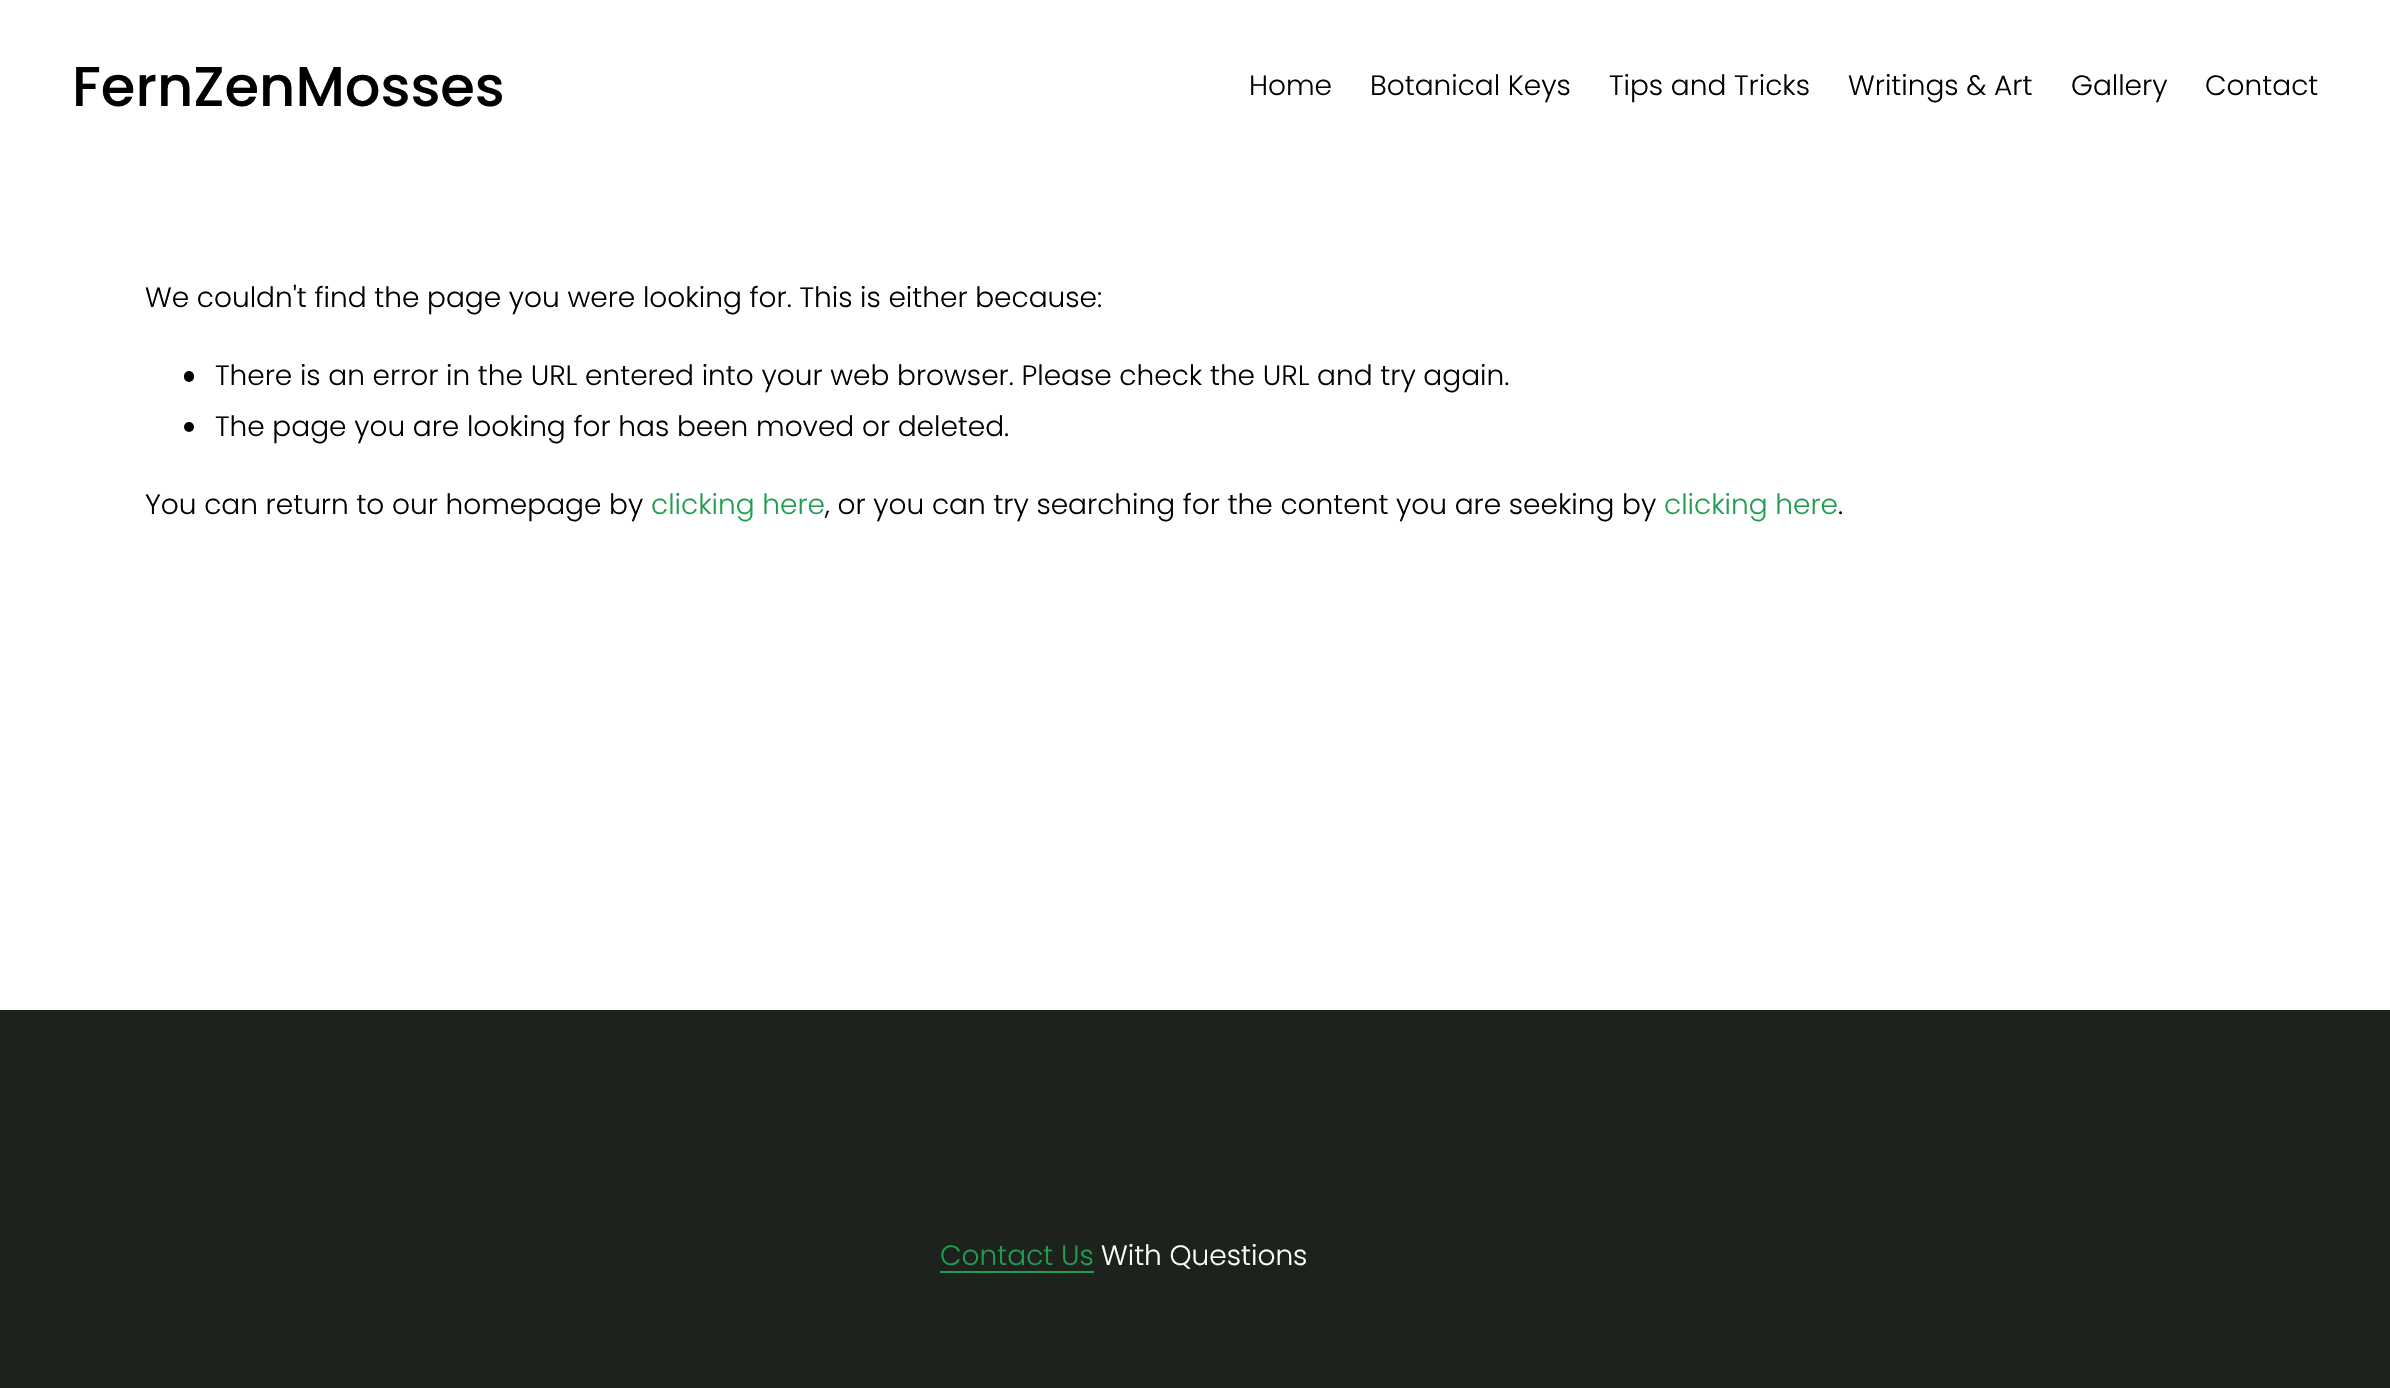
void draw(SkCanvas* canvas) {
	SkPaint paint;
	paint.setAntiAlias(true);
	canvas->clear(0xffffffff);
	SkFont f1(fontMgr->matchFamilyStyle("Poppins", SkFontStyle(500, SkFontStyle::kNormal_Width, SkFontStyle::kUpright_Slant)), 56);
	f1.setSubpixel(true);
	paint.setColor(0xff000000);
	canvas->drawString("FernZenMosses", 72, 106, f1, paint);
	SkFont f2(fontMgr->matchFamilyStyle("Poppins", SkFontStyle(300, SkFontStyle::kNormal_Width, SkFontStyle::kUpright_Slant)), 28);
	f2.setSubpixel(true);
	canvas->drawString("Home", 1249, 95, f2, paint);
	canvas->drawString("Botanical Keys", 1370, 95, f2, paint);
	canvas->drawString("Tips and Tricks", 1609, 95, f2, paint);
	canvas->drawString("Writings & Art", 1848, 95, f2, paint);
	canvas->drawString("Gallery", 2071, 95, f2, paint);
	canvas->drawString("Contact", 2205, 95, f2, paint);
	canvas->drawString("We couldn't find the page you were looking for. This is either because:", 145, 307, f2, paint);
	canvas->drawRoundRect(SkRect::MakeXYWH(184, 371, 10, 11), 5, 5, paint);
	canvas->drawString("There is an error in the URL entered into your web browser. Please check the URL and try again.", 215, 385, f2, paint);
	canvas->drawCircle(189, 427, 5, paint);
	canvas->drawString("The page you are looking for has been moved or deleted.", 215, 436, f2, paint);
	canvas->drawString("You can return to our homepage by", 145, 514, f2, paint);
	paint.setColor(0xff209d50);
	canvas->drawString("clicking here", 651, 514, f2, paint);
	paint.setColor(0xff000000);
	canvas->drawString(", or you can try searching for the content you are seeking by", 825, 514, f2, paint);
	paint.setColor(0xff209d50);
	canvas->drawString("clicking here", 1664, 514, f2, paint);
	paint.setColor(0xff000000);
	canvas->drawString(".", 1838, 514, f2, paint);
	paint.setColor(0xff1d231c);
	canvas->drawRect(SkRect::MakeXYWH(0, 1010, 2390, 378), paint);
	paint.setColor(0xff209d50);
	canvas->drawString("Contact Us", 940, 1265, f2, paint);
	canvas->drawRect(SkRect::MakeXYWH(940, 1271, 154, 2), paint);
	paint.setColor(0xffffffff);
	canvas->drawString("With Questions", 1101, 1265, f2, paint);
}
